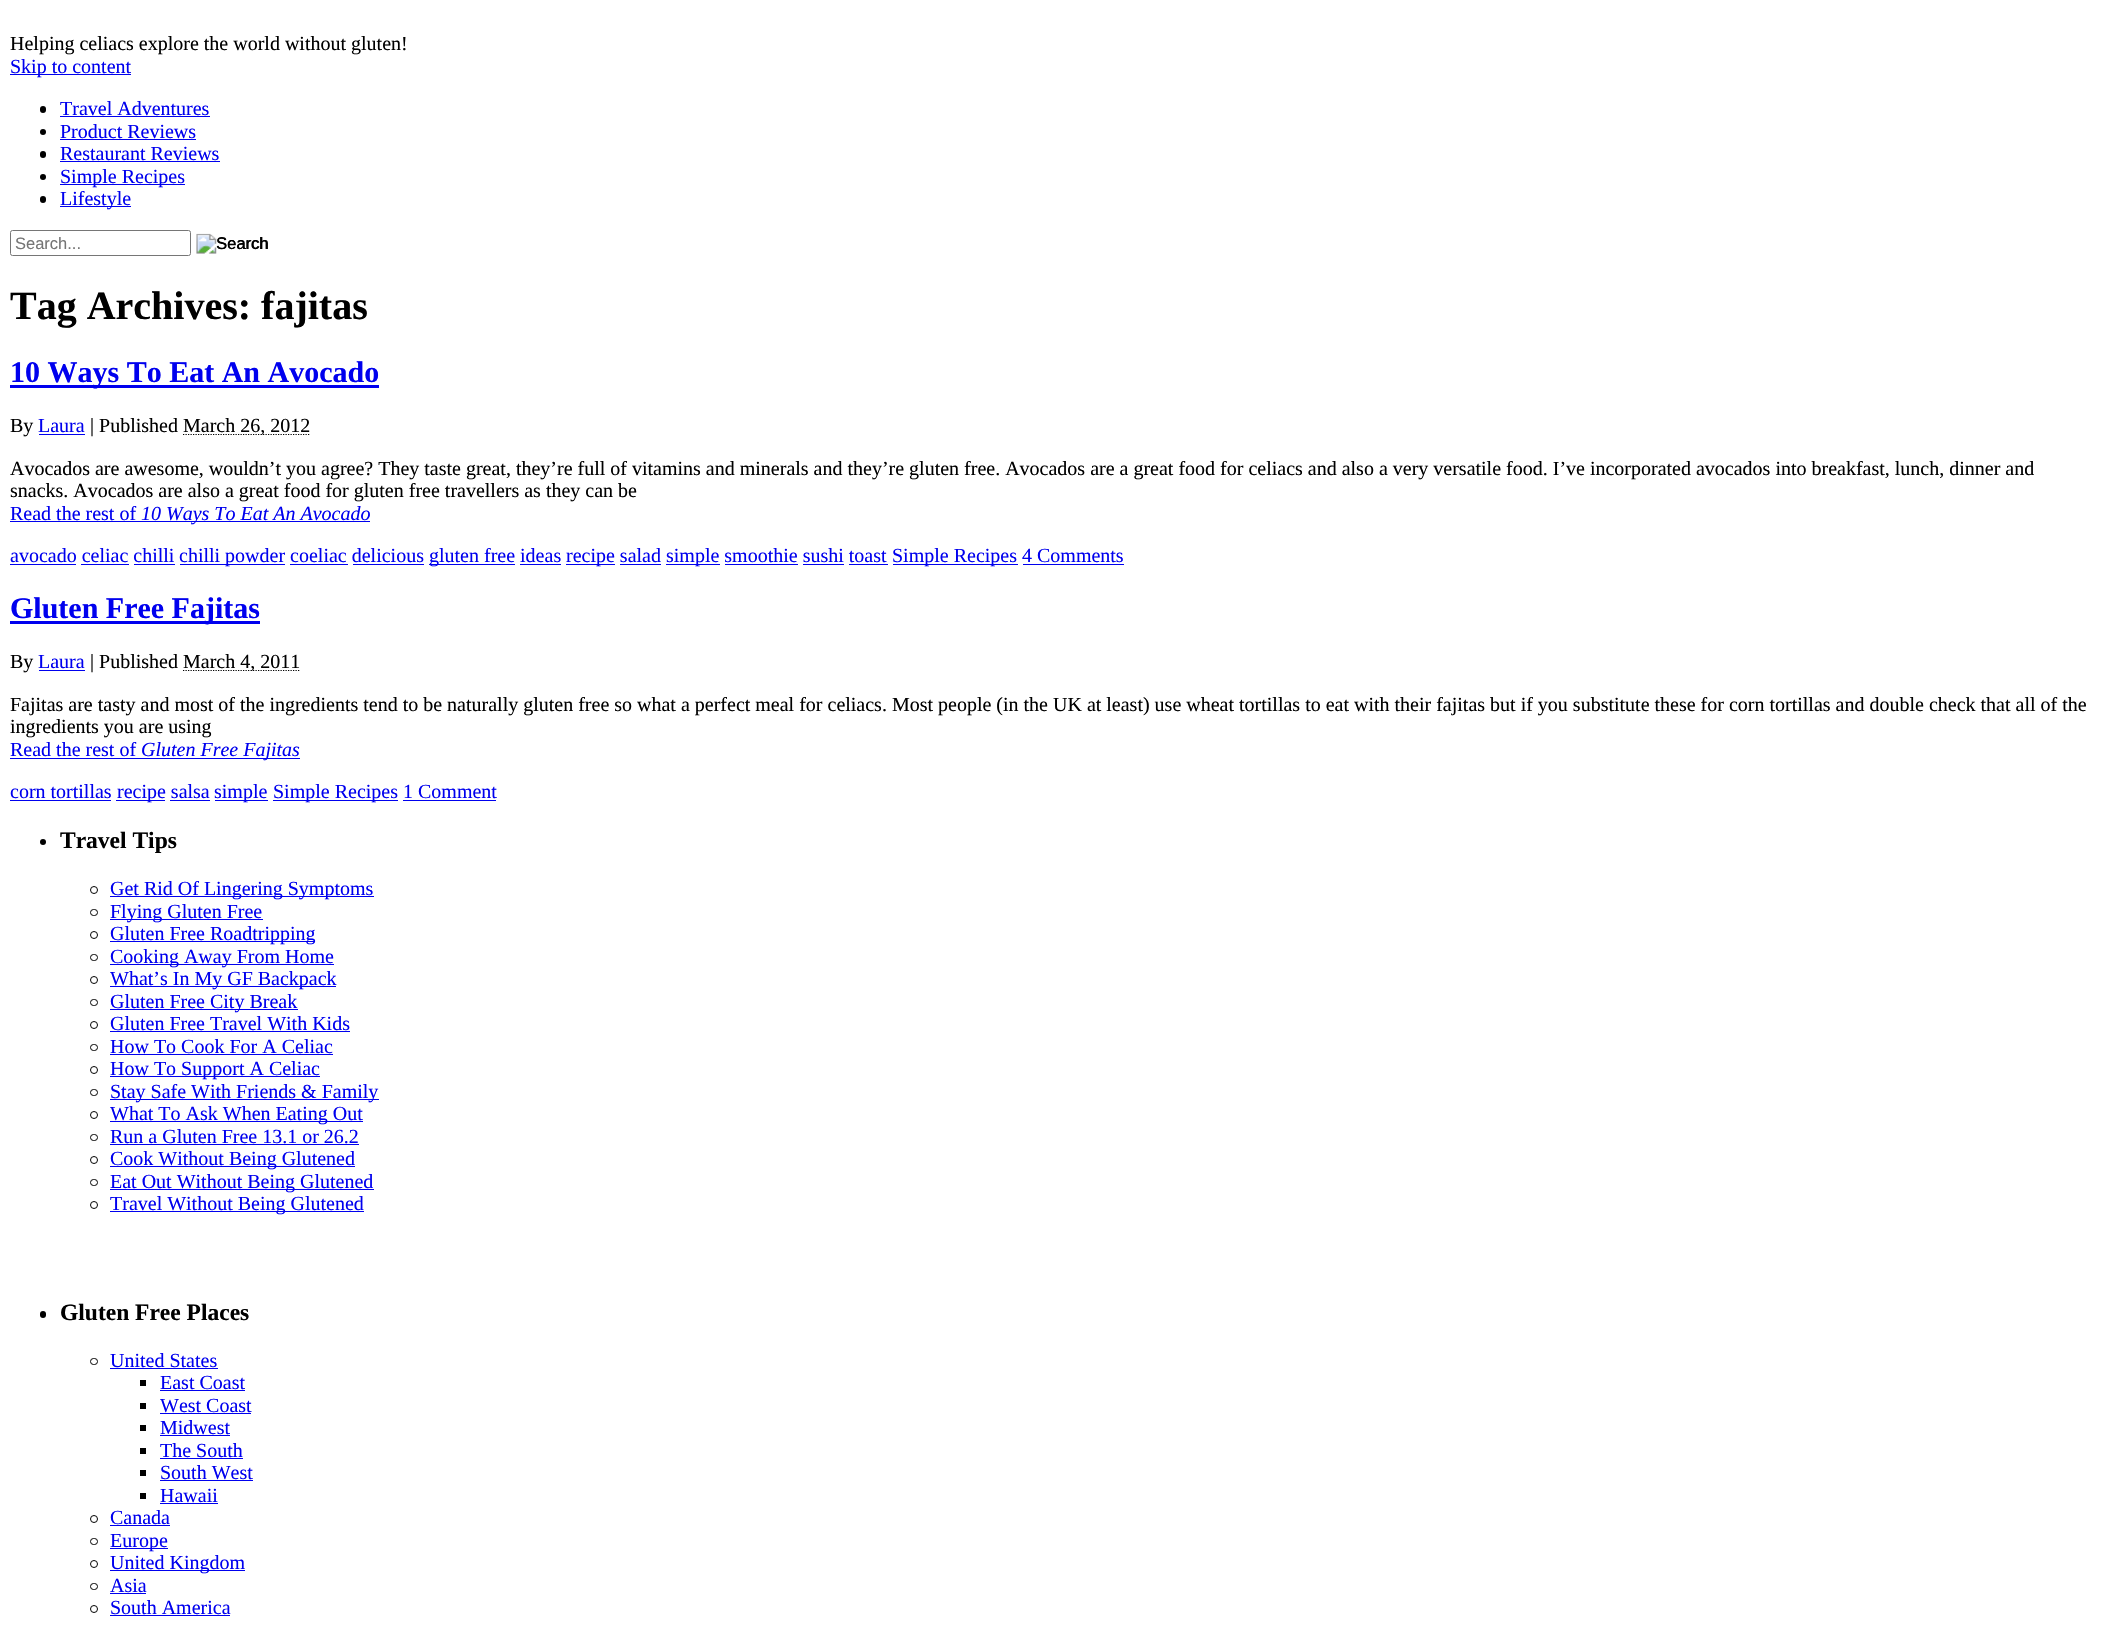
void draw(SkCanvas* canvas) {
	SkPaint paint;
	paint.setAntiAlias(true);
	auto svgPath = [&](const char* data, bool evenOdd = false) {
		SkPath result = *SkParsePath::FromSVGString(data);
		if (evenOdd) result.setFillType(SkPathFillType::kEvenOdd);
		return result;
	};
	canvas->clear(0xffffffff);
	SkFont f1(fontMgr->matchFamilyStyle("Liberation Serif", SkFontStyle::Normal()), 20);
	f1.setSubpixel(true);
	paint.setColor(0xff000000);
	canvas->drawString("Helping celiacs explore the world without gluten!", 10, 50, f1, paint);
	paint.setColor(0xff0000ee);
	canvas->drawRect(SkRect::MakeXYWH(10, 74, 121, 1), paint);
	canvas->drawString("Skip to content", 10, 73, f1, paint);
	paint.setColor(0xff000000);
	canvas->drawRoundRect(SkRect::MakeXYWH(40, 106, 6, 7), 3, 3, paint);
	paint.setColor(0xff0000ee);
	canvas->drawString("Travel Adventures", 60, 115, f1, paint);
	canvas->drawRect(SkRect::MakeXYWH(60, 116, 150, 1), paint);
	paint.setColor(0xff000000);
	canvas->drawCircle(43, 132, 3, paint);
	paint.setColor(0xff0000ee);
	canvas->drawString("Product Reviews", 60, 138, f1, paint);
	canvas->drawRect(SkRect::MakeXYWH(60, 139, 136, 1), paint);
	paint.setColor(0xff000000);
	canvas->drawRoundRect(SkRect::MakeXYWH(40, 151, 6, 7), 3, 3, paint);
	paint.setColor(0xff0000ee);
	canvas->drawString("Restaurant Reviews", 60, 160, f1, paint);
	canvas->drawRect(SkRect::MakeXYWH(60, 161, 160, 1), paint);
	paint.setColor(0xff000000);
	canvas->drawCircle(43, 177, 3, paint);
	paint.setColor(0xff0000ee);
	canvas->drawRect(SkRect::MakeXYWH(60, 184, 125, 1), paint);
	canvas->drawString("Simple Recipes", 60, 183, f1, paint);
	paint.setColor(0xff000000);
	canvas->drawRoundRect(SkRect::MakeXYWH(40, 196, 6, 7), 3, 3, paint);
	paint.setColor(0xff0000ee);
	canvas->drawRect(SkRect::MakeXYWH(60, 206, 71, 1), paint);
	canvas->drawString("Lifestyle", 60, 205, f1, paint);
	paint.setStroke(true);
	paint.setStrokeWidth(1);
	paint.setColor(0xff767676);
	canvas->drawRoundRect(SkRect::MakeXYWH(10.5, 230.5, 180, 25), 2, 2, paint);
	SkFont f2(fontMgr->matchFamilyStyle("Liberation Sans", SkFontStyle::Normal()), 16.5);
	f2.setSubpixel(true);
	paint.setStroke(false);
	paint.setColor(0xff757575);
	canvas->drawString("Search...", 15, 249, f2, paint);
	canvas->drawImageRect(SkImages::DeferredFromEncodedData(SkData::MakeFromFileName("img1.png")), SkRect::MakeXYWH(196, 233, 72, 21), SkSamplingOptions());
	paint.setColor(0xff000000);
	canvas->drawString("Search", 216, 249, f2, paint);
	SkFont f3(fontMgr->matchFamilyStyle("Liberation Serif", SkFontStyle::Bold()), 40);
	f3.setSubpixel(true);
	canvas->drawString("Tag Archives: fajitas", 10, 319, f3, paint);
	paint.setColor(0xff0000ee);
	canvas->drawRect(SkRect::MakeXYWH(10, 385, 369, 3), paint);
	SkFont f4(fontMgr->matchFamilyStyle("Liberation Serif", SkFontStyle::Bold()), 30);
	f4.setSubpixel(true);
	canvas->drawString("10 Ways To Eat An Avocado", 10, 382, f4, paint);
	paint.setColor(0xff000000);
	canvas->drawString("By", 10, 432, f1, paint);
	paint.setColor(0xff0000ee);
	canvas->drawString("Laura", 38, 432, f1, paint);
	canvas->drawRect(SkRect::MakeXYWH(39, 434, 46, 1), paint);
	paint.setColor(0xff000000);
	canvas->drawString("| Published", 90, 432, f1, paint);
	paint.setStroke(true);
	paint.setStrokeWidth(1.2);
	paint.setPathEffect(SkDashPathEffect::Make({{1.25f, 1.25f}}, 0));
	canvas->drawPath(svgPath("M183 434.5H310"), paint);
	paint.setPathEffect(nullptr);
	paint.setStroke(false);
	canvas->drawString("March 26, 2012", 183, 432, f1, paint);
	canvas->drawString("Avocados are awesome, wouldn’t you agree? They taste great, they’re full of vitamins and minerals and they’re gluten free. Avocados are a great food for celiacs and also a very versatile food. I’ve incorporated avocados into breakfast, lunch, dinner and", 10, 475, f1, paint);
	canvas->drawString("snacks. Avocados are also a great food for gluten free travellers as they can be", 10, 497, f1, paint);
	paint.setColor(0xff0000ee);
	canvas->drawString("Read the rest of", 10, 520, f1, paint);
	canvas->drawRect(SkRect::MakeXYWH(10, 521, 360, 1), paint);
	SkFont f5(fontMgr->matchFamilyStyle("Liberation Serif", SkFontStyle::Italic()), 20);
	f5.setSubpixel(true);
	canvas->drawString("10 Ways To Eat An Avocado", 141, 520, f5, paint);
	canvas->drawString("avocado celiac chilli", 10, 562, f1, paint);
	canvas->drawRect(SkRect::MakeXYWH(10, 564, 66, 1), paint);
	canvas->drawRect(SkRect::MakeXYWH(81, 564, 48, 1), paint);
	canvas->drawRect(SkRect::MakeXYWH(134, 564, 41, 1), paint);
	canvas->drawRect(SkRect::MakeXYWH(180, 564, 105, 1), paint);
	canvas->drawString("chilli powder coeliac delicious", 179, 562, f1, paint);
	canvas->drawRect(SkRect::MakeXYWH(290, 564, 58, 1), paint);
	canvas->drawRect(SkRect::MakeXYWH(353, 564, 71, 1), paint);
	canvas->drawRect(SkRect::MakeXYWH(429, 564, 86, 1), paint);
	canvas->drawString("gluten free ideas", 429, 562, f1, paint);
	canvas->drawRect(SkRect::MakeXYWH(520, 564, 41, 1), paint);
	canvas->drawRect(SkRect::MakeXYWH(566, 564, 49, 1), paint);
	canvas->drawString("recipe salad", 566, 562, f1, paint);
	canvas->drawRect(SkRect::MakeXYWH(620, 564, 41, 1), paint);
	canvas->drawRect(SkRect::MakeXYWH(666, 564, 54, 1), paint);
	canvas->drawString("simple smoothie sushi toast", 666, 562, f1, paint);
	canvas->drawRect(SkRect::MakeXYWH(725, 564, 73, 1), paint);
	canvas->drawRect(SkRect::MakeXYWH(803, 564, 41, 1), paint);
	canvas->drawRect(SkRect::MakeXYWH(849, 564, 39, 1), paint);
	canvas->drawRect(SkRect::MakeXYWH(893, 564, 125, 1), paint);
	canvas->drawString("Simple Recipes 4 Comments", 892, 562, f1, paint);
	canvas->drawRect(SkRect::MakeXYWH(1023, 564, 101, 1), paint);
	canvas->drawRect(SkRect::MakeXYWH(10, 621, 250, 3), paint);
	canvas->drawString("Gluten Free Fajitas", 10, 618, f4, paint);
	paint.setColor(0xff000000);
	canvas->drawString("By", 10, 668, f1, paint);
	paint.setColor(0xff0000ee);
	canvas->drawString("Laura", 38, 668, f1, paint);
	canvas->drawRect(SkRect::MakeXYWH(39, 670, 46, 1), paint);
	paint.setColor(0xff000000);
	canvas->drawString("| Published", 90, 668, f1, paint);
	paint.setStroke(true);
	paint.setPathEffect(SkDashPathEffect::Make({{1.25f, 1.25f}}, 0));
	canvas->drawPath(svgPath("M183 670.5H300"), paint);
	paint.setPathEffect(nullptr);
	paint.setStroke(false);
	canvas->drawString("March 4, 2011", 183, 668, f1, paint);
	canvas->drawString("Fajitas are tasty and most of the ingredients tend to be naturally gluten free so what a perfect meal for celiacs. Most people (in the UK at least) use wheat tortillas to eat with their fajitas but if you substitute these for corn tortillas and double check that all of the", 10, 711, f1, paint);
	canvas->drawString("ingredients you are using", 10, 733, f1, paint);
	paint.setColor(0xff0000ee);
	canvas->drawString("Read the rest of", 10, 756, f1, paint);
	canvas->drawRect(SkRect::MakeXYWH(10, 758, 290, 1), paint);
	canvas->drawString("Gluten Free Fajitas", 141, 756, f5, paint);
	canvas->drawString("corn tortillas", 10, 798, f1, paint);
	canvas->drawRect(SkRect::MakeXYWH(10, 800, 101, 1), paint);
	canvas->drawRect(SkRect::MakeXYWH(116, 800, 49, 1), paint);
	canvas->drawString("recipe salsa", 117, 798, f1, paint);
	canvas->drawRect(SkRect::MakeXYWH(170, 800, 40, 1), paint);
	canvas->drawRect(SkRect::MakeXYWH(215, 800, 53, 1), paint);
	canvas->drawString("simple", 214, 798, f1, paint);
	canvas->drawRect(SkRect::MakeXYWH(273, 800, 125, 1), paint);
	canvas->drawString("Simple Recipes 1 Comment", 273, 798, f1, paint);
	canvas->drawRect(SkRect::MakeXYWH(403, 800, 93, 1), paint);
	paint.setColor(0xff000000);
	canvas->drawCircle(43, 842, 3, paint);
	SkFont f6(fontMgr->matchFamilyStyle("Liberation Serif", SkFontStyle::Bold()), 23.5);
	f6.setSubpixel(true);
	canvas->drawString("Travel Tips", 60, 848, f6, paint);
	paint.setStroke(true);
	paint.setStrokeWidth(1);
	canvas->drawCircle(94, 890, 3.5, paint);
	paint.setStroke(false);
	paint.setColor(0xff0000ee);
	canvas->drawRect(SkRect::MakeXYWH(110, 896, 264, 1), paint);
	canvas->drawString("Get Rid Of Lingering Symptoms", 110, 895, f1, paint);
	paint.setStroke(true);
	paint.setColor(0xff000000);
	canvas->drawRoundRect(SkRect::MakeXYWH(90.5, 909.5, 7, 6), 3, 3, paint);
	paint.setStroke(false);
	paint.setColor(0xff0000ee);
	canvas->drawRect(SkRect::MakeXYWH(110, 919, 153, 1), paint);
	canvas->drawString("Flying Gluten Free", 110, 918, f1, paint);
	paint.setStroke(true);
	paint.setColor(0xff000000);
	canvas->drawCircle(94, 935, 3.5, paint);
	paint.setStroke(false);
	paint.setColor(0xff0000ee);
	canvas->drawRect(SkRect::MakeXYWH(110, 941, 205, 1), paint);
	canvas->drawString("Gluten Free Roadtripping", 110, 940, f1, paint);
	paint.setStroke(true);
	paint.setColor(0xff000000);
	canvas->drawRoundRect(SkRect::MakeXYWH(90.5, 954.5, 7, 6), 3, 3, paint);
	paint.setStroke(false);
	paint.setColor(0xff0000ee);
	canvas->drawRect(SkRect::MakeXYWH(110, 964, 224, 1), paint);
	canvas->drawString("Cooking Away From Home", 110, 963, f1, paint);
	paint.setStroke(true);
	paint.setColor(0xff000000);
	canvas->drawCircle(94, 980, 3.5, paint);
	paint.setStroke(false);
	paint.setColor(0xff0000ee);
	canvas->drawRect(SkRect::MakeXYWH(110, 986, 226, 1), paint);
	canvas->drawString("What’s In My GF Backpack", 110, 985, f1, paint);
	paint.setStroke(true);
	paint.setColor(0xff000000);
	canvas->drawRoundRect(SkRect::MakeXYWH(90.5, 999.5, 7, 6), 3, 3, paint);
	paint.setStroke(false);
	paint.setColor(0xff0000ee);
	canvas->drawRect(SkRect::MakeXYWH(110, 1009, 188, 1), paint);
	canvas->drawString("Gluten Free City Break", 110, 1008, f1, paint);
	paint.setStroke(true);
	paint.setColor(0xff000000);
	canvas->drawCircle(94, 1025, 3.5, paint);
	paint.setStroke(false);
	paint.setColor(0xff0000ee);
	canvas->drawString("Gluten Free Travel With Kids", 110, 1030, f1, paint);
	canvas->drawRect(SkRect::MakeXYWH(110, 1031, 240, 1), paint);
	paint.setStroke(true);
	paint.setColor(0xff000000);
	canvas->drawRoundRect(SkRect::MakeXYWH(90.5, 1044.5, 7, 6), 3, 3, paint);
	paint.setStroke(false);
	paint.setColor(0xff0000ee);
	canvas->drawString("How To Cook For A Celiac", 110, 1053, f1, paint);
	canvas->drawRect(SkRect::MakeXYWH(110, 1054, 223, 1), paint);
	paint.setStroke(true);
	paint.setColor(0xff000000);
	canvas->drawCircle(94, 1070, 3.5, paint);
	paint.setStroke(false);
	paint.setColor(0xff0000ee);
	canvas->drawRect(SkRect::MakeXYWH(110, 1076, 210, 1), paint);
	canvas->drawString("How To Support A Celiac", 110, 1075, f1, paint);
	paint.setStroke(true);
	paint.setColor(0xff000000);
	canvas->drawRoundRect(SkRect::MakeXYWH(90.5, 1089.5, 7, 6), 3, 3, paint);
	paint.setStroke(false);
	paint.setColor(0xff0000ee);
	canvas->drawRect(SkRect::MakeXYWH(110, 1099, 269, 1), paint);
	canvas->drawString("Stay Safe With Friends & Family", 110, 1098, f1, paint);
	paint.setStroke(true);
	paint.setColor(0xff000000);
	canvas->drawCircle(94, 1115, 3.5, paint);
	paint.setStroke(false);
	paint.setColor(0xff0000ee);
	canvas->drawRect(SkRect::MakeXYWH(110, 1121, 253, 1), paint);
	canvas->drawString("What To Ask When Eating Out", 110, 1120, f1, paint);
	paint.setStroke(true);
	paint.setColor(0xff000000);
	canvas->drawRoundRect(SkRect::MakeXYWH(90.5, 1134.5, 7, 6), 3, 3, paint);
	paint.setStroke(false);
	paint.setColor(0xff0000ee);
	canvas->drawString("Run a Gluten Free 13.1 or 26.2", 110, 1143, f1, paint);
	canvas->drawRect(SkRect::MakeXYWH(110, 1144, 249, 1), paint);
	paint.setStroke(true);
	paint.setColor(0xff000000);
	canvas->drawCircle(94, 1160, 3.5, paint);
	paint.setStroke(false);
	paint.setColor(0xff0000ee);
	canvas->drawRect(SkRect::MakeXYWH(110, 1166, 245, 1), paint);
	canvas->drawString("Cook Without Being Glutened", 110, 1165, f1, paint);
	paint.setStroke(true);
	paint.setColor(0xff000000);
	canvas->drawRoundRect(SkRect::MakeXYWH(90.5, 1179.5, 7, 6), 3, 3, paint);
	paint.setStroke(false);
	paint.setColor(0xff0000ee);
	canvas->drawRect(SkRect::MakeXYWH(110, 1189, 264, 1), paint);
	canvas->drawString("Eat Out Without Being Glutened", 110, 1188, f1, paint);
	paint.setStroke(true);
	paint.setColor(0xff000000);
	canvas->drawCircle(94, 1205, 3.5, paint);
	paint.setStroke(false);
	paint.setColor(0xff0000ee);
	canvas->drawRect(SkRect::MakeXYWH(110, 1211, 254, 1), paint);
	canvas->drawString("Travel Without Being Glutened", 110, 1210, f1, paint);
	paint.setColor(0xff000000);
	canvas->drawRoundRect(SkRect::MakeXYWH(40, 1311, 6, 7), 3, 3, paint);
	canvas->drawString("Gluten Free Places", 60, 1320, f6, paint);
	paint.setStroke(true);
	canvas->drawRoundRect(SkRect::MakeXYWH(90.5, 1358.5, 7, 6), 3, 3, paint);
	paint.setStroke(false);
	paint.setColor(0xff0000ee);
	canvas->drawString("United States", 110, 1367, f1, paint);
	canvas->drawRect(SkRect::MakeXYWH(110, 1368, 108, 1), paint);
	paint.setColor(0xff000000);
	canvas->drawRect(SkRect::MakeXYWH(140, 1380, 6, 6), paint);
	paint.setColor(0xff0000ee);
	canvas->drawString("East Coast", 160, 1389, f1, paint);
	canvas->drawRect(SkRect::MakeXYWH(160, 1390, 85, 1), paint);
	paint.setColor(0xff000000);
	canvas->drawRect(SkRect::MakeXYWH(140, 1403, 6, 6), paint);
	paint.setColor(0xff0000ee);
	canvas->drawString("West Coast", 160, 1412, f1, paint);
	canvas->drawRect(SkRect::MakeXYWH(160, 1413, 91, 1), paint);
	paint.setColor(0xff000000);
	canvas->drawRect(SkRect::MakeXYWH(140, 1425, 6, 6), paint);
	paint.setColor(0xff0000ee);
	canvas->drawString("Midwest", 160, 1434, f1, paint);
	canvas->drawRect(SkRect::MakeXYWH(160, 1435, 70, 1), paint);
	paint.setColor(0xff000000);
	canvas->drawRect(SkRect::MakeXYWH(140, 1448, 6, 6), paint);
	paint.setColor(0xff0000ee);
	canvas->drawString("The South", 160, 1457, f1, paint);
	canvas->drawRect(SkRect::MakeXYWH(160, 1458, 83, 1), paint);
	paint.setColor(0xff000000);
	canvas->drawRect(SkRect::MakeXYWH(140, 1470, 6, 6), paint);
	paint.setColor(0xff0000ee);
	canvas->drawString("South West", 160, 1479, f1, paint);
	canvas->drawRect(SkRect::MakeXYWH(160, 1480, 93, 1), paint);
	paint.setColor(0xff000000);
	canvas->drawRect(SkRect::MakeXYWH(140, 1493, 6, 6), paint);
	paint.setColor(0xff0000ee);
	canvas->drawString("Hawaii", 160, 1502, f1, paint);
	canvas->drawRect(SkRect::MakeXYWH(160, 1503, 58, 1), paint);
	paint.setStroke(true);
	paint.setColor(0xff000000);
	canvas->drawCircle(94, 1519, 3.5, paint);
	paint.setStroke(false);
	paint.setColor(0xff0000ee);
	canvas->drawString("Canada", 110, 1524, f1, paint);
	canvas->drawRect(SkRect::MakeXYWH(110, 1525, 60, 1), paint);
	paint.setStroke(true);
	paint.setColor(0xff000000);
	canvas->drawRoundRect(SkRect::MakeXYWH(90.5, 1538.5, 7, 6), 3, 3, paint);
	paint.setStroke(false);
	paint.setColor(0xff0000ee);
	canvas->drawRect(SkRect::MakeXYWH(110, 1548, 58, 1), paint);
	canvas->drawString("Europe", 110, 1547, f1, paint);
	paint.setStroke(true);
	paint.setColor(0xff000000);
	canvas->drawCircle(94, 1564, 3.5, paint);
	paint.setStroke(false);
	paint.setColor(0xff0000ee);
	canvas->drawRect(SkRect::MakeXYWH(110, 1570, 135, 1), paint);
	canvas->drawString("United Kingdom", 110, 1569, f1, paint);
	paint.setStroke(true);
	paint.setColor(0xff000000);
	canvas->drawRoundRect(SkRect::MakeXYWH(90.5, 1583.5, 7, 6), 3, 3, paint);
	paint.setStroke(false);
	paint.setColor(0xff0000ee);
	canvas->drawString("Asia", 110, 1592, f1, paint);
	canvas->drawRect(SkRect::MakeXYWH(110, 1593, 36, 1), paint);
	paint.setStroke(true);
	paint.setColor(0xff000000);
	canvas->drawCircle(94, 1609, 3.5, paint);
	paint.setStroke(false);
	paint.setColor(0xff0000ee);
	canvas->drawString("South America", 110, 1614, f1, paint);
	canvas->drawRect(SkRect::MakeXYWH(110, 1615, 120, 1), paint);
}
